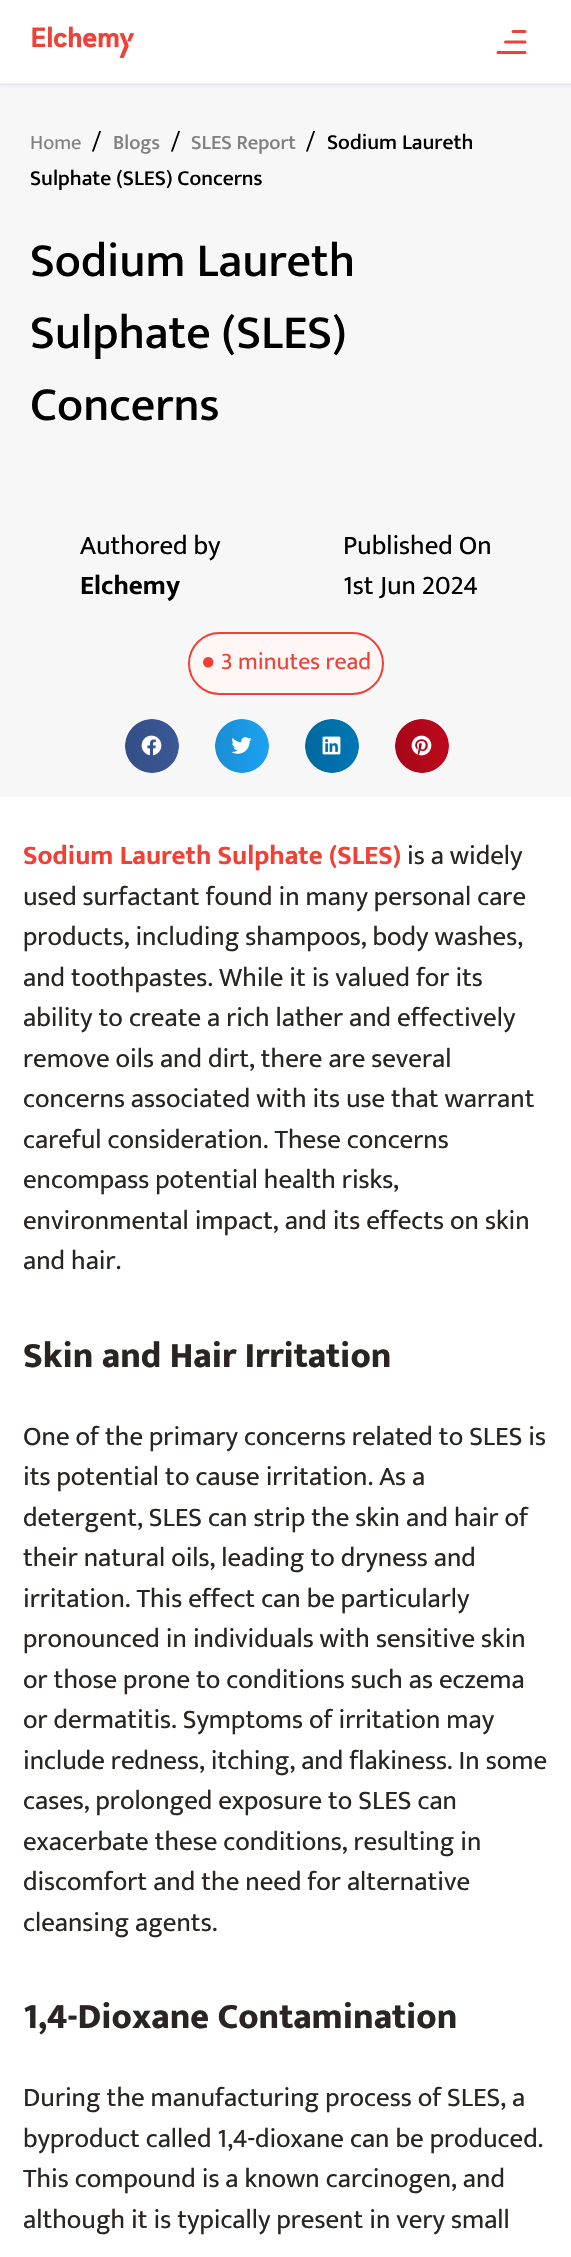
void draw(SkCanvas* canvas) {
	SkPaint paint;
	paint.setAntiAlias(true);
	auto svgPath = [&](const char* data, bool evenOdd = false) {
		SkPath result = *SkParsePath::FromSVGString(data);
		if (evenOdd) result.setFillType(SkPathFillType::kEvenOdd);
		return result;
	};
	canvas->clear(0xffffffff);
	paint.setColor(0xfff7f7f7);
	canvas->drawRect(SkRect::MakeXYWH(0, 84, 571, 713), paint);
	canvas->save();
	canvas->clipRect(SkRect::MakeXYWH(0, 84, 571, 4));
	paint.setColor(0x0f2a58fb);
	paint.setMaskFilter(SkMaskFilter::MakeBlur(kNormal_SkBlurStyle, 1.5));
	canvas->drawRect(SkRect::MakeXYWH(0, 3, 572, 84), paint);
	paint.setMaskFilter(nullptr);
	canvas->restore();
	paint.setColor(0x66d9d9d9);
	canvas->drawRect(SkRect::MakeXYWH(0, 83, 571, 2), paint);
	canvas->drawImageRect(SkImages::DeferredFromEncodedData(SkData::MakeFromFileName("img1.png")), SkRect::MakeXYWH(32, 26, 103, 32), SkSamplingOptions());
	paint.setStroke(true);
	paint.setStrokeWidth(3);
	paint.setStrokeCap(SkPaint::kRound_Cap);
	paint.setStrokeJoin(SkPaint::kRound_Join);
	paint.setColor(0xffee4137);
	canvas->drawPath(svgPath("M525 31.5H513M525 42H505.5M525 52.5H498"), paint);
	SkFont f1(fontMgr->matchFamilyStyle("Mukta", SkFontStyle::Normal()), 20.5);
	f1.setSubpixel(true);
	paint.setStroke(false);
	paint.setColor(0xff808080);
	canvas->drawString("Home", 30, 149, f1, paint);
	SkFont f2(fontMgr->matchFamilyStyle("Mukta", SkFontStyle::Normal()), 24);
	f2.setSubpixel(true);
	paint.setColor(0xff000000);
	canvas->drawString("/", 92, 149, f2, paint);
	SkFont f3(fontMgr->matchFamilyStyle("Mukta", SkFontStyle(500, SkFontStyle::kNormal_Width, SkFontStyle::kUpright_Slant)), 20.5);
	f3.setSubpixel(true);
	paint.setColor(0xff808080);
	canvas->drawString("Blogs", 113, 149, f3, paint);
	paint.setColor(0xff000000);
	canvas->drawString("/", 171, 149, f2, paint);
	paint.setColor(0xff808080);
	canvas->drawString("SLES Report", 191, 149, f3, paint);
	paint.setColor(0xff000000);
	canvas->drawString("/", 306, 149, f2, paint);
	SkFont f4(fontMgr->matchFamilyStyle("Mukta", SkFontStyle(500, SkFontStyle::kNormal_Width, SkFontStyle::kUpright_Slant)), 21.6);
	f4.setSubpixel(true);
	canvas->drawString("Sodium Laureth", 327, 149, f4, paint);
	canvas->drawString("Sulphate (SLES) Concerns", 30, 185, f4, paint);
	SkFont f5(fontMgr->matchFamilyStyle("Mukta", SkFontStyle(500, SkFontStyle::kNormal_Width, SkFontStyle::kUpright_Slant)), 48);
	f5.setSubpixel(true);
	canvas->drawString("Sodium Laureth", 30, 276, f5, paint);
	canvas->drawString("Sulphate (SLES)", 30, 348, f5, paint);
	canvas->drawString("Concerns", 30, 420, f5, paint);
	SkFont f6(fontMgr->matchFamilyStyle("Mukta", SkFontStyle::Normal()), 27);
	f6.setSubpixel(true);
	canvas->drawString("Authored by", 80, 554, f6, paint);
	SkFont f7(fontMgr->matchFamilyStyle("Mukta", SkFontStyle::Bold()), 27);
	f7.setSubpixel(true);
	canvas->drawString("Elchemy", 80, 594, f7, paint);
	canvas->drawString("Published On", 343, 554, f6, paint);
	canvas->drawString("1st Jun 2024", 343, 594, f6, paint);
	paint.setColor(0xfffff7f6);
	canvas->drawRoundRect(SkRect::MakeXYWH(189, 633, 194, 61), 30.5, 30.5, paint);
	paint.setStroke(true);
	paint.setStrokeWidth(2);
	paint.setStrokeCap(SkPaint::kButt_Cap);
	paint.setStrokeJoin(SkPaint::kMiter_Join);
	paint.setColor(0xffef4136);
	canvas->drawRoundRect(SkRect::MakeXYWH(189, 633, 194, 61), 30.5, 30.5, paint);
	SkFont f8(fontMgr->matchFamilyStyle("Liberation Serif", SkFontStyle::Normal()), 24);
	f8.setSubpixel(true);
	paint.setStroke(false);
	canvas->drawString("●", 201, 669, f8, paint);
	canvas->drawString("3 minutes read", 221, 669, f2, paint);
	canvas->drawImageRect(SkImages::DeferredFromEncodedData(SkData::MakeFromFileName("img2.png")), SkRect::MakeXYWH(125, 719, 54, 54), SkSamplingOptions());
	canvas->drawImageRect(SkImages::DeferredFromEncodedData(SkData::MakeFromFileName("img3.png")), SkRect::MakeXYWH(215, 719, 54, 54), SkSamplingOptions());
	canvas->drawImageRect(SkImages::DeferredFromEncodedData(SkData::MakeFromFileName("img4.png")), SkRect::MakeXYWH(305, 719, 54, 54), SkSamplingOptions());
	canvas->drawImageRect(SkImages::DeferredFromEncodedData(SkData::MakeFromFileName("img5.png")), SkRect::MakeXYWH(395, 719, 54, 54), SkSamplingOptions());
	canvas->drawString("Sodium Laureth Sulphate (SLES)", 23, 864, f7, paint);
	paint.setColor(0xff2a2522);
	canvas->drawString("is a widely", 407, 864, f6, paint);
	canvas->drawString("used surfactant found in many personal care", 23, 905, f6, paint);
	canvas->drawString("products, including shampoos, body washes,", 23, 945, f6, paint);
	canvas->drawString("and toothpastes. While it is valued for its", 23, 986, f6, paint);
	canvas->drawString("ability to create a rich lather and effectively", 23, 1026, f6, paint);
	canvas->drawString("remove oils and dirt, there are several", 23, 1067, f6, paint);
	canvas->drawString("concerns associated with its use that warrant", 23, 1107, f6, paint);
	canvas->drawString("careful consideration. These concerns", 23, 1148, f6, paint);
	canvas->drawString("encompass potential health risks,", 23, 1188, f6, paint);
	canvas->drawString("environmental impact, and its effects on skin", 23, 1229, f6, paint);
	canvas->drawString("and hair.", 23, 1269, f6, paint);
	SkFont f9(fontMgr->matchFamilyStyle("Mukta", SkFontStyle(800, SkFontStyle::kNormal_Width, SkFontStyle::kUpright_Slant)), 36);
	f9.setSubpixel(true);
	canvas->drawString("Skin and Hair Irritation", 23, 1367, f9, paint);
	canvas->drawString("One of the primary concerns related to SLES is", 23, 1445, f6, paint);
	canvas->drawString("its potential to cause irritation. As a", 23, 1485, f6, paint);
	canvas->drawString("detergent, SLES can strip the skin and hair of", 23, 1526, f6, paint);
	canvas->drawString("their natural oils, leading to dryness and", 23, 1566, f6, paint);
	canvas->drawString("irritation. This effect can be particularly", 23, 1607, f6, paint);
	canvas->drawString("pronounced in individuals with sensitive skin", 23, 1647, f6, paint);
	canvas->drawString("or those prone to conditions such as eczema", 23, 1688, f6, paint);
	canvas->drawString("or dermatitis. Symptoms of irritation may", 23, 1728, f6, paint);
	canvas->drawString("include redness, itching, and flakiness. In some", 23, 1769, f6, paint);
	canvas->drawString("cases, prolonged exposure to SLES can", 23, 1809, f6, paint);
	canvas->drawString("exacerbate these conditions, resulting in", 23, 1850, f6, paint);
	canvas->drawString("discomfort and the need for alternative", 23, 1890, f6, paint);
	canvas->drawString("cleansing agents.", 23, 1931, f6, paint);
	canvas->drawString("1,4-Dioxane Contamination", 23, 2028, f9, paint);
	canvas->drawString("During the manufacturing process of SLES, a", 23, 2106, f6, paint);
	canvas->drawString("byproduct called 1,4-dioxane can be produced.", 23, 2147, f6, paint);
	canvas->drawString("This compound is a known carcinogen, and", 23, 2187, f6, paint);
	canvas->drawString("although it is typically present in very small", 23, 2228, f6, paint);
}
